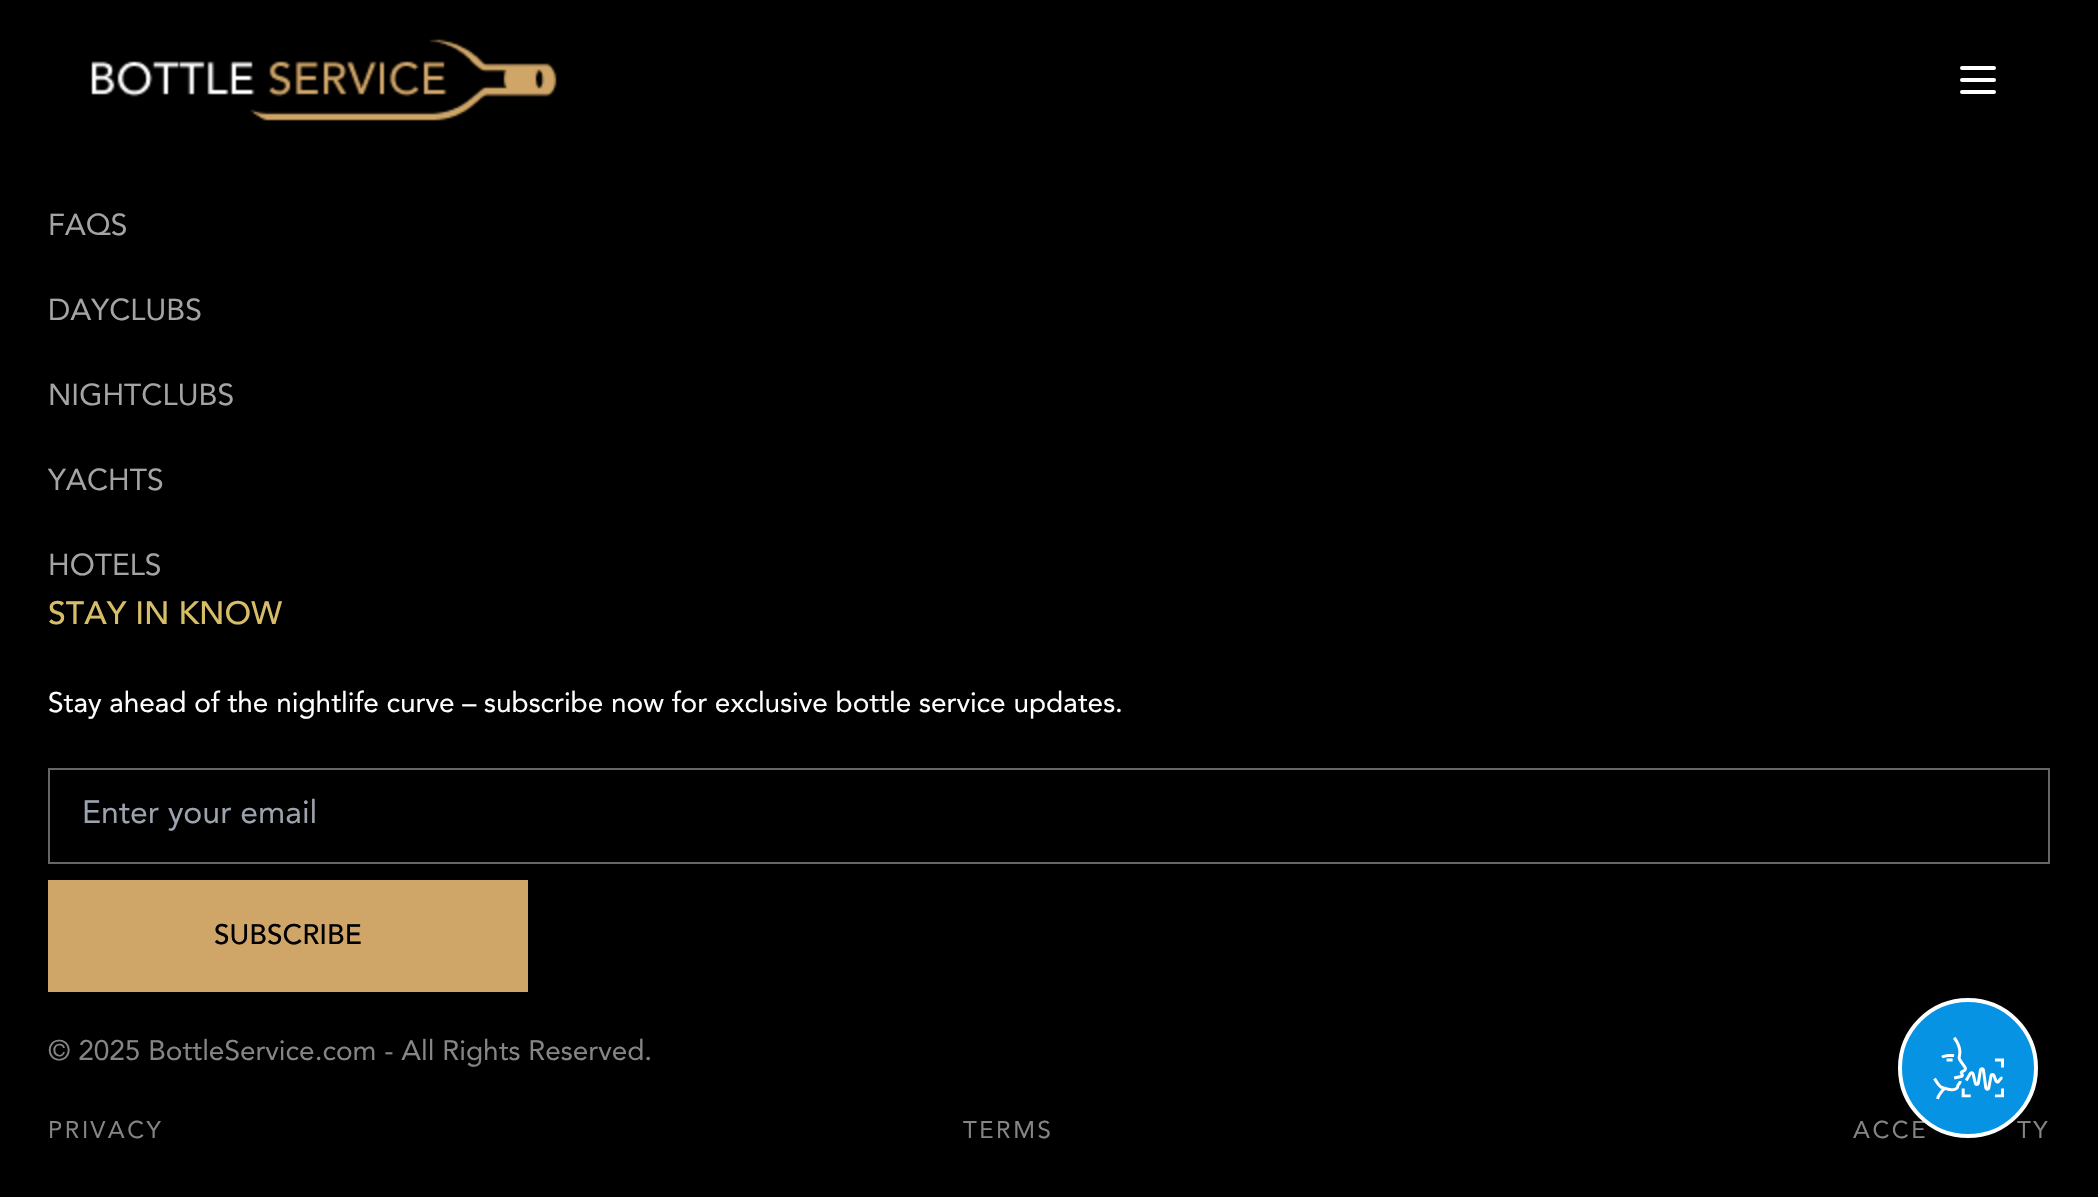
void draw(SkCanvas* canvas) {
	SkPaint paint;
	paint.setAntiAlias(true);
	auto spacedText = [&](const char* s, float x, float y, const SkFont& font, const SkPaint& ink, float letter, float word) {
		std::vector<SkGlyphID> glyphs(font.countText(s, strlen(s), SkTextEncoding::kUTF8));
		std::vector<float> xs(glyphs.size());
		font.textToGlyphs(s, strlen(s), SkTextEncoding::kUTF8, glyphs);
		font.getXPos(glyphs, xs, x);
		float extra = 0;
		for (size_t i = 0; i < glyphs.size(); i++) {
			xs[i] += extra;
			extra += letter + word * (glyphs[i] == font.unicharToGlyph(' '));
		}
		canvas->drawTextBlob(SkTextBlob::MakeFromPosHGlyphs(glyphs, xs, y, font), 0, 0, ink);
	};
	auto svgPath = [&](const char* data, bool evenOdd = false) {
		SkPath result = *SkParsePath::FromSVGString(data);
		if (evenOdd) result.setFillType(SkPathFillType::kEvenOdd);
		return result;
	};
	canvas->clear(0xff000000);
	canvas->drawImageRect(SkImages::DeferredFromEncodedData(SkData::MakeFromFileName("img1.png")), SkRect::MakeXYWH(91, 39, 466, 82), SkSamplingOptions());
	paint.setStroke(true);
	paint.setStrokeWidth(4);
	paint.setStrokeCap(SkPaint::kRound_Cap);
	paint.setStrokeJoin(SkPaint::kRound_Join);
	paint.setColor(0xffffffff);
	canvas->drawPath(svgPath("M1962 68H1994M1962 80H1994M1962 92H1994"), paint);
	SkFont f1(fontMgr->matchFamilyStyle("Avenir", SkFontStyle::Normal()), 30);
	f1.setSubpixel(true);
	paint.setStroke(false);
	paint.setColor(0xffa4a4a4);
	canvas->drawString("FAQS", 48, 235, f1, paint);
	canvas->drawString("DAYCLUBS", 48, 320, f1, paint);
	canvas->drawString("NIGHTCLUBS", 48, 405, f1, paint);
	canvas->drawString("YACHTS", 48, 490, f1, paint);
	canvas->drawString("HOTELS", 48, 575, f1, paint);
	SkFont f2(fontMgr->matchFamilyStyle("Avenir", SkFontStyle(500, SkFontStyle::kNormal_Width, SkFontStyle::kUpright_Slant)), 32);
	f2.setSubpixel(true);
	paint.setColor(0xffd6bd68);
	canvas->drawString("STAY IN KNOW", 48, 624, f2, paint);
	SkFont f3(fontMgr->matchFamilyStyle("Avenir", SkFontStyle::Normal()), 28);
	f3.setSubpixel(true);
	paint.setColor(0xffffffff);
	canvas->drawString("Stay ahead of the nightlife curve – subscribe now for exclusive bottle service updates.", 48, 712, f3, paint);
	paint.setStroke(true);
	paint.setStrokeWidth(2);
	paint.setStrokeCap(SkPaint::kButt_Cap);
	paint.setStrokeJoin(SkPaint::kMiter_Join);
	paint.setColor(0xff666666);
	canvas->drawRect(SkRect::MakeXYWH(49, 769, 2000, 94), paint);
	SkFont f4(fontMgr->matchFamilyStyle("Avenir", SkFontStyle::Normal()), 32);
	f4.setSubpixel(true);
	paint.setStroke(false);
	paint.setColor(0xff9ca3af);
	canvas->drawString("Enter your email", 82, 823, f4, paint);
	paint.setColor(0xffcfa568);
	canvas->drawRect(SkRect::MakeXYWH(48, 880, 480, 112), paint);
	SkFont f5(fontMgr->matchFamilyStyle("Avenir", SkFontStyle(500, SkFontStyle::kNormal_Width, SkFontStyle::kUpright_Slant)), 28);
	f5.setSubpixel(true);
	paint.setColor(0xff000000);
	canvas->drawString("SUBSCRIBE", 214, 944, f5, paint);
	paint.setColor(0xff858585);
	canvas->drawString("© 2025 BottleService.com - All Rights Reserved.", 48, 1060, f3, paint);
	SkFont f6(fontMgr->matchFamilyStyle("Avenir", SkFontStyle::Normal()), 24);
	f6.setSubpixel(true);
	spacedText("PRIVACY", 48, 1138, f6, paint, 2.5, 0);
	spacedText("TERMS", 963, 1138, f6, paint, 2.5, 0);
	spacedText("ACCE", 1853, 1138, f6, paint, 2.5, 0);
	spacedText("TY", 2017, 1138, f6, paint, 2.5, 0);
	canvas->drawImageRect(SkImages::DeferredFromEncodedData(SkData::MakeFromFileName("img2.png")), SkRect::MakeXYWH(1898, 998, 140, 140), SkSamplingOptions());
}
